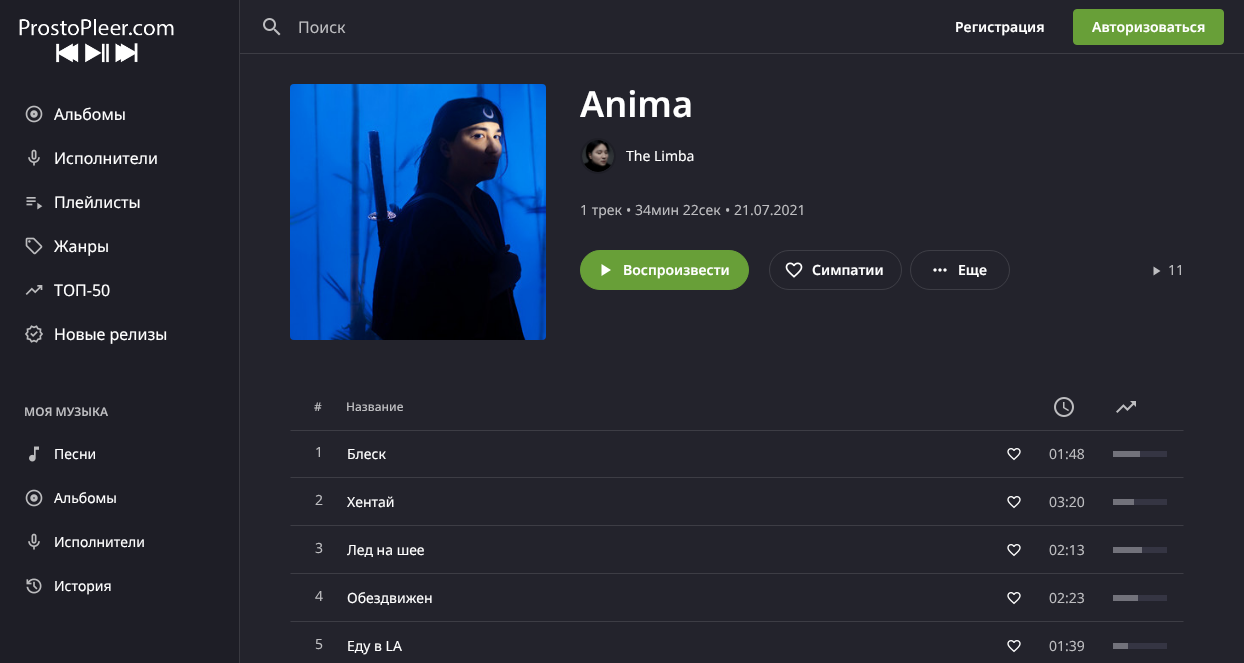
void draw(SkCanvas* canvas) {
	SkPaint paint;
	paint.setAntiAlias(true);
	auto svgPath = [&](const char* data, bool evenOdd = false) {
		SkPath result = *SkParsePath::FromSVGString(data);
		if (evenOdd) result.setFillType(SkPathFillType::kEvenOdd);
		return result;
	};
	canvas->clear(0xff23232c);
	paint.setColor(0xff3d3d45);
	canvas->drawRect(SkRect::MakeXYWH(240, 53, 1004, 1), paint);
	canvas->drawImageRect(SkImages::DeferredFromEncodedData(SkData::MakeFromFileName("img1.png")), SkRect::MakeXYWH(263, 18, 18, 18), SkSamplingOptions());
	SkFont f1(fontMgr->matchFamilyStyle("Noto Sans", SkFontStyle::Normal()), 16);
	f1.setSubpixel(true);
	paint.setColor(0xffbdbdc0);
	canvas->drawString("Поиск", 298, 33, f1, paint);
	SkFont f2(fontMgr->matchFamilyStyle("Noto Sans", SkFontStyle(600, SkFontStyle::kNormal_Width, SkFontStyle::kUpright_Slant)), 14);
	f2.setSubpixel(true);
	paint.setColor(0xffffffff);
	canvas->drawString("Регистрация", 955, 32, f2, paint);
	paint.setColor(0xff689f38);
	canvas->drawRoundRect(SkRect::MakeXYWH(1073.5, 9.5, 150, 35), 3.5, 3.5, paint);
	paint.setStroke(true);
	paint.setStrokeWidth(1);
	canvas->drawRoundRect(SkRect::MakeXYWH(1073.5, 9.5, 150, 35), 3.5, 3.5, paint);
	paint.setStroke(false);
	paint.setColor(0xffffffff);
	canvas->drawString("Авторизоваться", 1092, 32, f2, paint);
	paint.setColor(0xff1e1e26);
	canvas->drawRect(SkRect::MakeXYWH(0, 0, 239, 663), paint);
	paint.setColor(0xff393940);
	canvas->drawRect(SkRect::MakeXYWH(239, 0, 1, 663), paint);
	canvas->drawImageRect(SkImages::DeferredFromEncodedData(SkData::MakeFromFileName("img2.png")), SkRect::MakeXYWH(19, 19, 155, 44), SkSamplingOptions());
	canvas->drawImageRect(SkImages::DeferredFromEncodedData(SkData::MakeFromFileName("img3.png")), SkRect::MakeXYWH(25, 105, 18, 18), SkSamplingOptions());
	paint.setColor(0xffffffff);
	canvas->drawString("Альбомы", 54, 120, f1, paint);
	canvas->drawImageRect(SkImages::DeferredFromEncodedData(SkData::MakeFromFileName("img4.png")), SkRect::MakeXYWH(28, 149, 12, 17), SkSamplingOptions());
	canvas->drawString("Исполнители", 54, 164, f1, paint);
	canvas->drawImageRect(SkImages::DeferredFromEncodedData(SkData::MakeFromFileName("img5.png")), SkRect::MakeXYWH(26, 197, 17, 13), SkSamplingOptions());
	canvas->drawString("Плейлисты", 54, 208, f1, paint);
	canvas->drawImageRect(SkImages::DeferredFromEncodedData(SkData::MakeFromFileName("img6.png")), SkRect::MakeXYWH(25, 237, 18, 18), SkSamplingOptions());
	canvas->drawString("Жанры", 54, 252, f1, paint);
	canvas->drawImageRect(SkImages::DeferredFromEncodedData(SkData::MakeFromFileName("img7.png")), SkRect::MakeXYWH(25, 285, 18, 10), SkSamplingOptions());
	canvas->drawString("ТОП-50", 54, 296, f1, paint);
	canvas->drawImageRect(SkImages::DeferredFromEncodedData(SkData::MakeFromFileName("img8.png")), SkRect::MakeXYWH(25, 325, 18, 18), SkSamplingOptions());
	canvas->drawString("Новые релизы", 54, 340, f1, paint);
	SkFont f3(fontMgr->matchFamilyStyle("Noto Sans", SkFontStyle(600, SkFontStyle::kNormal_Width, SkFontStyle::kUpright_Slant)), 12);
	f3.setSubpixel(true);
	paint.setColor(0xffbdbdc0);
	canvas->drawString("МОЯ МУЗЫКА", 24, 416, f3, paint);
	canvas->drawImageRect(SkImages::DeferredFromEncodedData(SkData::MakeFromFileName("img9.png")), SkRect::MakeXYWH(29, 446, 10, 16), SkSamplingOptions());
	SkFont f4(fontMgr->matchFamilyStyle("Noto Sans", SkFontStyle::Normal()), 14);
	f4.setSubpixel(true);
	paint.setColor(0xffffffff);
	canvas->drawString("Песни", 54, 459, f4, paint);
	canvas->drawImageRect(SkImages::DeferredFromEncodedData(SkData::MakeFromFileName("img3.png")), SkRect::MakeXYWH(25, 489, 18, 18), SkSamplingOptions());
	canvas->drawString("Альбомы", 54, 503, f4, paint);
	canvas->drawImageRect(SkImages::DeferredFromEncodedData(SkData::MakeFromFileName("img4.png")), SkRect::MakeXYWH(28, 533, 12, 17), SkSamplingOptions());
	canvas->drawString("Исполнители", 54, 547, f4, paint);
	canvas->drawImageRect(SkImages::DeferredFromEncodedData(SkData::MakeFromFileName("img10.png")), SkRect::MakeXYWH(26, 578, 16, 16), SkSamplingOptions());
	canvas->drawString("История", 54, 591, f4, paint);
	canvas->drawImageRect(SkImages::DeferredFromEncodedData(SkData::MakeFromFileName("img11.png")), SkRect::MakeXYWH(290, 84, 256, 256), SkSamplingOptions());
	SkFont f5(fontMgr->matchFamilyStyle("Noto Sans", SkFontStyle(600, SkFontStyle::kNormal_Width, SkFontStyle::kUpright_Slant)), 36);
	f5.setSubpixel(true);
	canvas->drawString("Anima", 580, 117, f5, paint);
	paint.setColor(0xff1e1e26);
	canvas->drawCircle(598, 156, 18, paint);
	canvas->drawImageRect(SkImages::DeferredFromEncodedData(SkData::MakeFromFileName("img12.png")), SkRect::MakeXYWH(582, 140, 32, 32), SkSamplingOptions());
	paint.setColor(0xffffffff);
	canvas->drawString("The Limba", 626, 161, f4, paint);
	paint.setColor(0xffbdbdc0);
	canvas->drawString("1 трек", 580, 215, f4, paint);
	canvas->drawString("•", 626, 215, f4, paint);
	canvas->drawString("34мин 22сек", 635, 215, f4, paint);
	canvas->drawString("•", 725, 215, f4, paint);
	canvas->drawString("21.07.2021", 734, 215, f4, paint);
	paint.setColor(0xff689f38);
	canvas->drawRoundRect(SkRect::MakeXYWH(580.5, 250.5, 168, 39), 19.5, 19.5, paint);
	paint.setStroke(true);
	canvas->drawRoundRect(SkRect::MakeXYWH(580.5, 250.5, 168, 39), 19.5, 19.5, paint);
	paint.setStroke(false);
	paint.setColor(0xffffffff);
	canvas->drawPath(svgPath("M601.5 276V264L611 270Z"), paint);
	canvas->drawString("Воспроизвести", 623, 275, f2, paint);
	paint.setStroke(true);
	paint.setColor(0xff3d3d45);
	canvas->drawRoundRect(SkRect::MakeXYWH(769.5, 250.5, 132, 39), 19.5, 19.5, paint);
	canvas->drawImageRect(SkImages::DeferredFromEncodedData(SkData::MakeFromFileName("img13.png")), SkRect::MakeXYWH(785, 262, 18, 16), SkSamplingOptions());
	paint.setStroke(false);
	paint.setColor(0xffffffff);
	canvas->drawString("Симпатии", 812, 275, f2, paint);
	paint.setStroke(true);
	paint.setColor(0xff3d3d45);
	canvas->drawRoundRect(SkRect::MakeXYWH(910.5, 250.5, 99, 39), 19.5, 19.5, paint);
	canvas->drawImageRect(SkImages::DeferredFromEncodedData(SkData::MakeFromFileName("img14.png")), SkRect::MakeXYWH(933, 268, 14, 4), SkSamplingOptions());
	paint.setStroke(false);
	paint.setColor(0xffffffff);
	canvas->drawString("Еще", 958, 275, f2, paint);
	paint.setColor(0xffbdbdc0);
	canvas->drawPath(svgPath("M1153.5 275.5V266.5L1160.5 271Z"), paint);
	canvas->drawString("11", 1168, 275, f4, paint);
	SkFont f6(fontMgr->matchFamilyStyle("Noto Sans", SkFontStyle(500, SkFontStyle::kNormal_Width, SkFontStyle::kUpright_Slant)), 12);
	f6.setSubpixel(true);
	canvas->drawString("#", 314, 411, f6, paint);
	canvas->drawString("Название", 346, 411, f6, paint);
	canvas->drawImageRect(SkImages::DeferredFromEncodedData(SkData::MakeFromFileName("img15.png")), SkRect::MakeXYWH(1054, 397, 20, 20), SkSamplingOptions());
	canvas->drawImageRect(SkImages::DeferredFromEncodedData(SkData::MakeFromFileName("img16.png")), SkRect::MakeXYWH(1116, 401, 20, 12), SkSamplingOptions());
	paint.setColor(0xff3d3d45);
	canvas->drawPath(svgPath("M290 430H1184L1183 431H291Z"), paint);
	canvas->drawPath(svgPath("M1184 478H290L291 477H1183Z"), paint);
	paint.setColor(0xffbdbdc0);
	canvas->drawString("1", 315, 457, f4, paint);
	paint.setColor(0xffffffff);
	canvas->drawString("Блеск", 347, 459, f4, paint);
	canvas->drawImageRect(SkImages::DeferredFromEncodedData(SkData::MakeFromFileName("img17.png")), SkRect::MakeXYWH(1007, 448, 14, 13), SkSamplingOptions());
	paint.setColor(0xffbdbdc0);
	canvas->drawString("01:48", 1049, 459, f4, paint);
	paint.setColor(0xff353543);
	canvas->drawRect(SkRect::MakeXYWH(1140, 451, 27, 6), paint);
	paint.setColor(0xff72727b);
	canvas->drawRect(SkRect::MakeXYWH(1113, 451, 27, 6), paint);
	paint.setColor(0xff3d3d45);
	canvas->drawPath(svgPath("M1184 526H290L291 525H1183Z"), paint);
	paint.setColor(0xffbdbdc0);
	canvas->drawString("2", 315, 505, f4, paint);
	paint.setColor(0xffffffff);
	canvas->drawString("Хентай", 347, 507, f4, paint);
	canvas->drawImageRect(SkImages::DeferredFromEncodedData(SkData::MakeFromFileName("img17.png")), SkRect::MakeXYWH(1007, 496, 14, 13), SkSamplingOptions());
	paint.setColor(0xffbdbdc0);
	canvas->drawString("03:20", 1049, 507, f4, paint);
	paint.setColor(0xff353543);
	canvas->drawRect(SkRect::MakeXYWH(1134, 499, 33, 6), paint);
	paint.setColor(0xff72727b);
	canvas->drawRect(SkRect::MakeXYWH(1113, 499, 21, 6), paint);
	paint.setColor(0xff3d3d45);
	canvas->drawPath(svgPath("M1184 574H290L291 573H1183Z"), paint);
	paint.setColor(0xffbdbdc0);
	canvas->drawString("3", 315, 553, f4, paint);
	paint.setColor(0xffffffff);
	canvas->drawString("Лед на шее", 347, 555, f4, paint);
	canvas->drawImageRect(SkImages::DeferredFromEncodedData(SkData::MakeFromFileName("img17.png")), SkRect::MakeXYWH(1007, 544, 14, 13), SkSamplingOptions());
	paint.setColor(0xffbdbdc0);
	canvas->drawString("02:13", 1049, 555, f4, paint);
	paint.setColor(0xff353543);
	canvas->drawRect(SkRect::MakeXYWH(1142, 547, 25, 6), paint);
	paint.setColor(0xff72727b);
	canvas->drawRect(SkRect::MakeXYWH(1113, 547, 29, 6), paint);
	paint.setColor(0xff3d3d45);
	canvas->drawPath(svgPath("M1184 622H290L291 621H1183Z"), paint);
	paint.setColor(0xffbdbdc0);
	canvas->drawString("4", 315, 601, f4, paint);
	paint.setColor(0xffffffff);
	canvas->drawString("Обездвижен", 347, 603, f4, paint);
	canvas->drawImageRect(SkImages::DeferredFromEncodedData(SkData::MakeFromFileName("img17.png")), SkRect::MakeXYWH(1007, 592, 14, 13), SkSamplingOptions());
	paint.setColor(0xffbdbdc0);
	canvas->drawString("02:23", 1049, 603, f4, paint);
	paint.setColor(0xff353543);
	canvas->drawRect(SkRect::MakeXYWH(1138, 595, 29, 6), paint);
	paint.setColor(0xff72727b);
	canvas->drawRect(SkRect::MakeXYWH(1113, 595, 25, 6), paint);
	paint.setColor(0xffbdbdc0);
	canvas->drawString("5", 315, 649, f4, paint);
	paint.setColor(0xffffffff);
	canvas->drawString("Еду в LA", 347, 651, f4, paint);
	canvas->drawImageRect(SkImages::DeferredFromEncodedData(SkData::MakeFromFileName("img17.png")), SkRect::MakeXYWH(1007, 640, 14, 13), SkSamplingOptions());
	paint.setColor(0xffbdbdc0);
	canvas->drawString("01:39", 1049, 651, f4, paint);
	paint.setColor(0xff353543);
	canvas->drawRect(SkRect::MakeXYWH(1128, 643, 39, 6), paint);
	paint.setColor(0xff72727b);
	canvas->drawRect(SkRect::MakeXYWH(1113, 643, 15, 6), paint);
}
